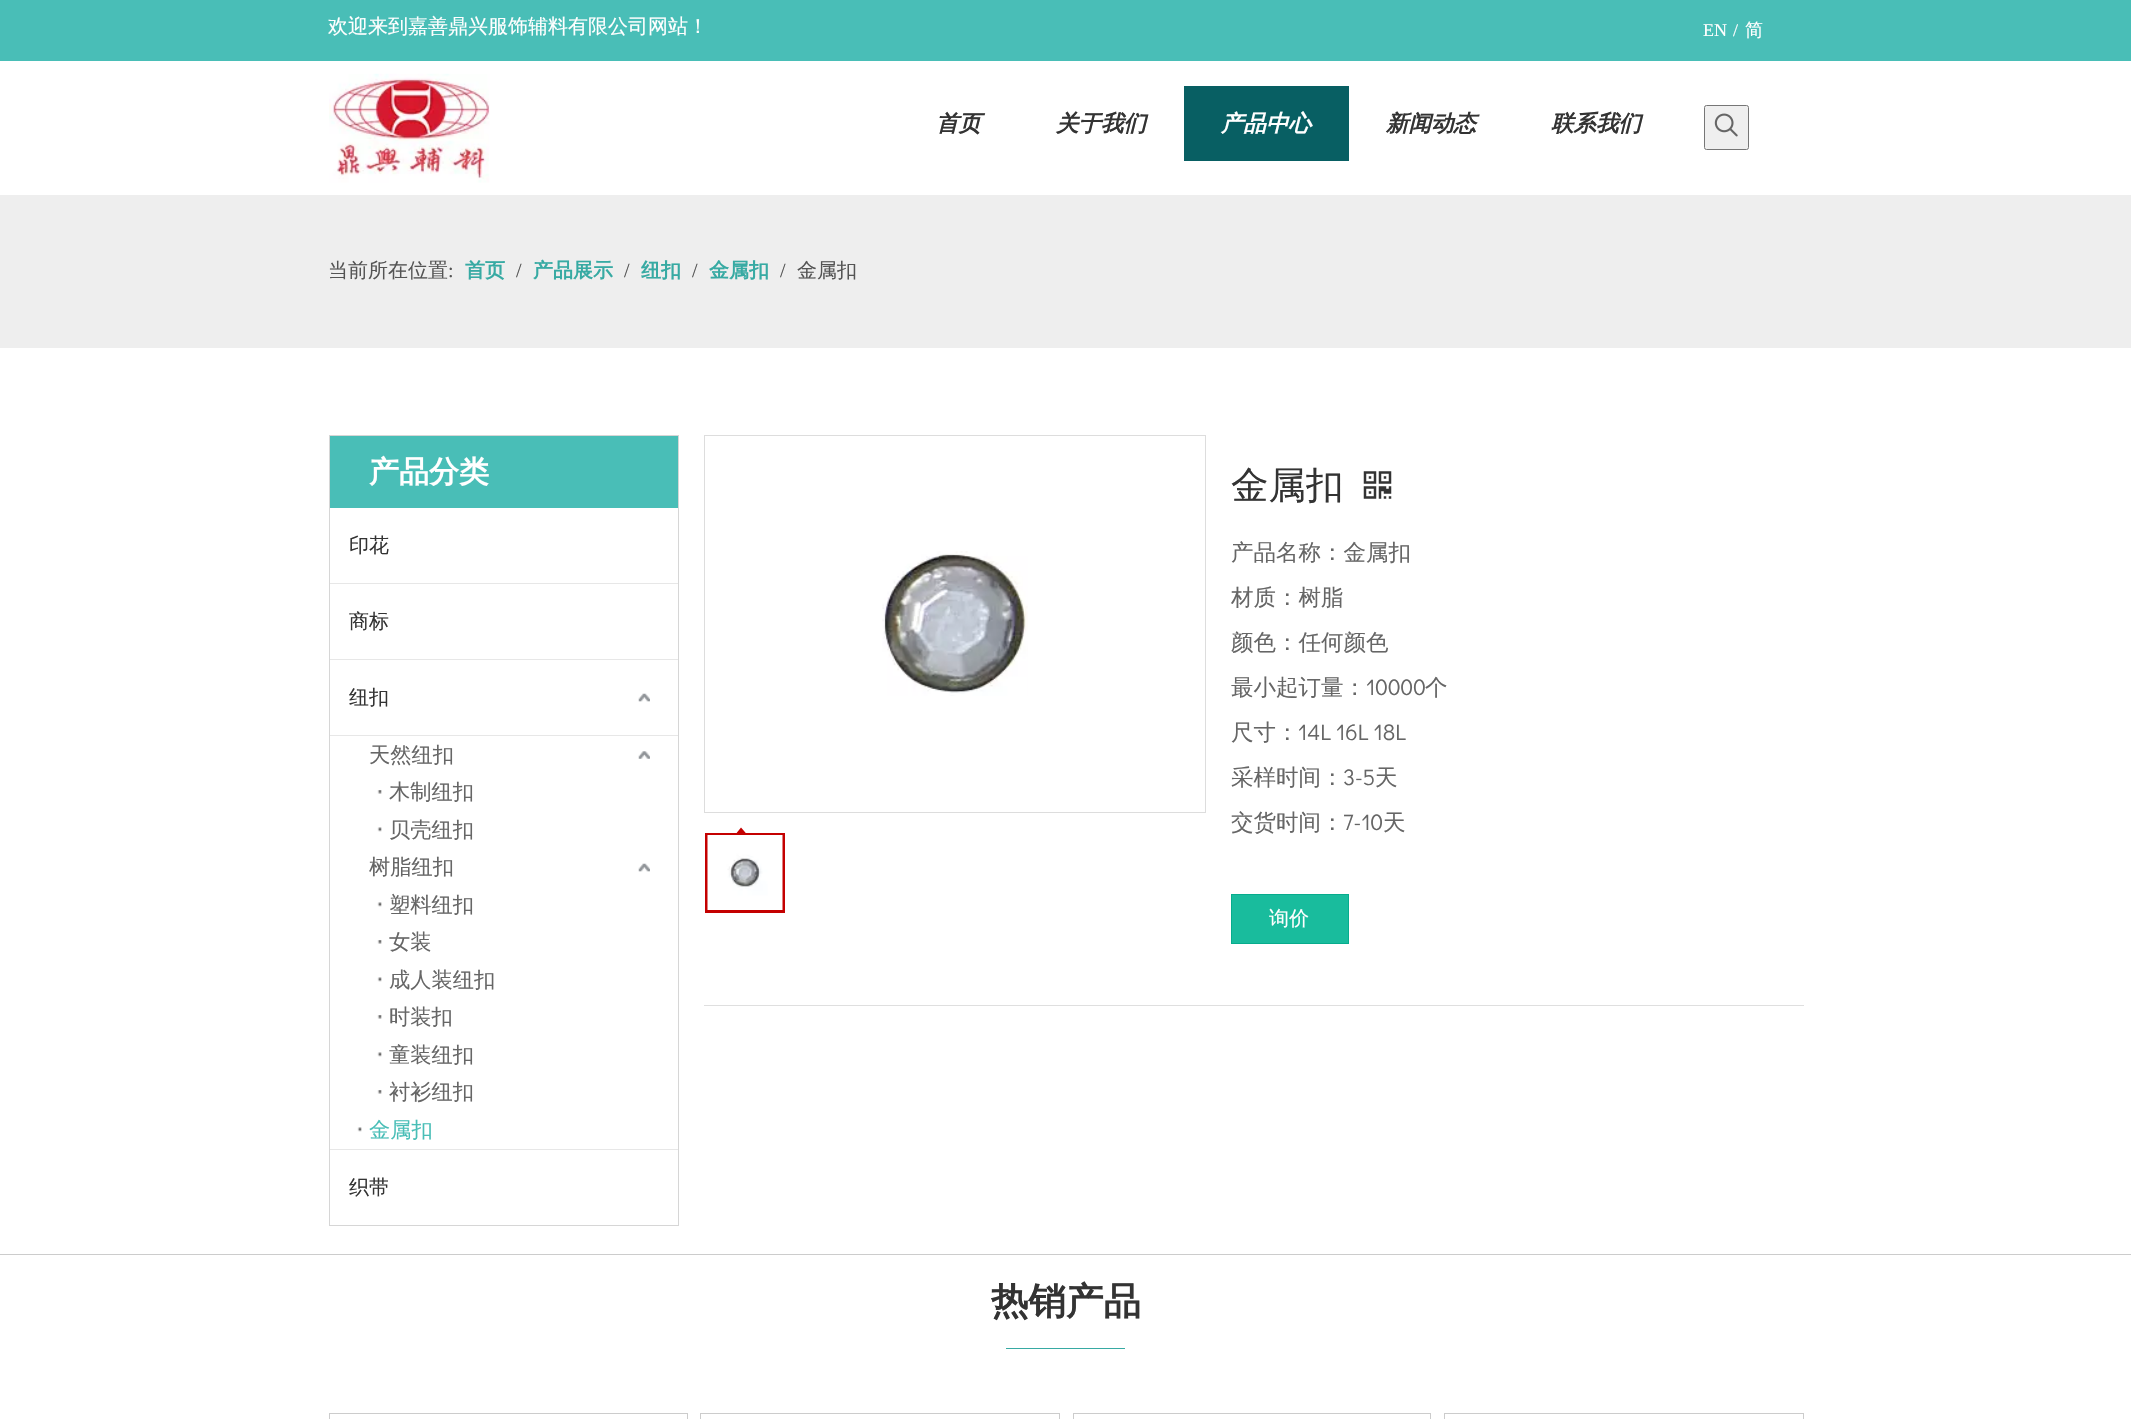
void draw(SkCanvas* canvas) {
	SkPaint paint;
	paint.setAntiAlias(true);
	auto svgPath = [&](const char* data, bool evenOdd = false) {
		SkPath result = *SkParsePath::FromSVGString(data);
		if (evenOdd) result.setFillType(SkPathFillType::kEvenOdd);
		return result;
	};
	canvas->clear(0xffffffff);
	paint.setColor(0xff49beb7);
	canvas->drawRect(SkRect::MakeXYWH(0, 0, 2131, 61), paint);
	SkFont f1(fontMgr->matchFamilyStyle("WenQuanYi Zen Hei", SkFontStyle(500, SkFontStyle::kNormal_Width, SkFontStyle::kUpright_Slant)), 20);
	f1.setSubpixel(true);
	paint.setColor(0xffffffff);
	canvas->drawString("欢迎来到嘉善鼎兴服饰辅料有限公司网站！", 328, 33, f1, paint);
	SkFont f2(fontMgr->matchFamilyStyle("Liberation Serif", SkFontStyle::Normal()), 18);
	f2.setSubpixel(true);
	canvas->drawString("EN", 1703, 36, f2, paint);
	canvas->drawString("/", 1733, 36, f2, paint);
	SkFont f3(fontMgr->matchFamilyStyle("WenQuanYi Zen Hei", SkFontStyle(500, SkFontStyle::kNormal_Width, SkFontStyle::kUpright_Slant)), 18);
	f3.setSubpixel(true);
	canvas->drawString("简", 1745, 36, f3, paint);
	canvas->drawImageRect(SkImages::DeferredFromEncodedData(SkData::MakeFromFileName("img1.png")), SkRect::MakeXYWH(329, 73, 161, 110), SkSamplingOptions());
	SkFont f4(fontMgr->matchFamilyStyle("WenQuanYi Zen Hei", SkFontStyle::BoldItalic()), 22.5);
	f4.setSubpixel(true);
	paint.setColor(0xff333333);
	canvas->drawString("首页", 936, 131, f4, paint);
	canvas->drawString("关于我们", 1056, 131, f4, paint);
	paint.setColor(0xff085f63);
	canvas->drawRect(SkRect::MakeXYWH(1184, 86, 165, 75), paint);
	paint.setColor(0xffffffff);
	canvas->drawString("产品中心", 1221, 131, f4, paint);
	paint.setColor(0xff333333);
	canvas->drawString("新闻动态", 1386, 131, f4, paint);
	canvas->drawString("联系我们", 1551, 131, f4, paint);
	paint.setColor(0xffefefef);
	canvas->drawRoundRect(SkRect::MakeXYWH(1704.5, 105.5, 44, 44), 2, 2, paint);
	paint.setStroke(true);
	paint.setStrokeWidth(1);
	paint.setColor(0xff767676);
	canvas->drawRoundRect(SkRect::MakeXYWH(1704.5, 105.5, 44, 44), 2, 2, paint);
	canvas->drawImageRect(SkImages::DeferredFromEncodedData(SkData::MakeFromFileName("img2.png")), SkRect::MakeXYWH(1714, 113, 24, 24), SkSamplingOptions());
	paint.setStroke(false);
	paint.setColor(0xffeeeeee);
	canvas->drawRect(SkRect::MakeXYWH(0, 195, 2131, 153), paint);
	paint.setColor(0xff545454);
	canvas->drawString("当前所在位置", 328, 277, f1, paint);
	SkFont f5(fontMgr->matchFamilyStyle("Liberation Serif", SkFontStyle::Normal()), 20);
	f5.setSubpixel(true);
	canvas->drawString(":", 448, 277, f5, paint);
	SkFont f6(fontMgr->matchFamilyStyle("WenQuanYi Zen Hei", SkFontStyle::Bold()), 20);
	f6.setSubpixel(true);
	paint.setColor(0xff37aaa3);
	canvas->drawString("首页", 465, 277, f6, paint);
	paint.setColor(0xff545454);
	canvas->drawString("/", 516, 277, f5, paint);
	paint.setColor(0xff37aaa3);
	canvas->drawString("产品展示", 533, 277, f6, paint);
	paint.setColor(0xff545454);
	canvas->drawString("/", 624, 277, f5, paint);
	paint.setColor(0xff37aaa3);
	canvas->drawString("纽扣", 641, 277, f6, paint);
	paint.setColor(0xff545454);
	canvas->drawString("/", 692, 277, f5, paint);
	paint.setColor(0xff37aaa3);
	canvas->drawString("金属扣", 709, 277, f6, paint);
	paint.setColor(0xff545454);
	canvas->drawString("/", 780, 277, f5, paint);
	canvas->drawString("金属扣", 797, 277, f1, paint);
	paint.setStroke(true);
	paint.setColor(0xffd6d6d6);
	canvas->drawRect(SkRect::MakeXYWH(329.5, 435.5, 349, 790), paint);
	paint.setStroke(false);
	paint.setColor(0xff49beb7);
	canvas->drawRect(SkRect::MakeXYWH(330, 436, 348, 72), paint);
	SkFont f7(fontMgr->matchFamilyStyle("WenQuanYi Zen Hei", SkFontStyle::Bold()), 30);
	f7.setSubpixel(true);
	paint.setColor(0xffffffff);
	canvas->drawString("产品分类", 369, 482, f7, paint);
	paint.setColor(0xff333333);
	canvas->drawString("印花", 349, 552, f1, paint);
	paint.setColor(0xffe7e7e7);
	canvas->drawRect(SkRect::MakeXYWH(330, 583, 348, 1), paint);
	paint.setColor(0xff333333);
	canvas->drawString("商标", 349, 628, f1, paint);
	paint.setColor(0xffe7e7e7);
	canvas->drawRect(SkRect::MakeXYWH(330, 659, 348, 1), paint);
	canvas->drawRect(SkRect::MakeXYWH(330, 735, 348, 1), paint);
	paint.setColor(0xff333333);
	canvas->drawString("纽扣", 349, 704, f1, paint);
	canvas->drawImageRect(SkImages::DeferredFromEncodedData(SkData::MakeFromFileName("img3.png")), SkRect::MakeXYWH(638, 693, 12, 9), SkSamplingOptions());
	SkFont f8(fontMgr->matchFamilyStyle("WenQuanYi Zen Hei", SkFontStyle(500, SkFontStyle::kNormal_Width, SkFontStyle::kUpright_Slant)), 21.25);
	f8.setSubpixel(true);
	paint.setColor(0xff666666);
	canvas->drawString("天然纽扣", 369, 762, f8, paint);
	canvas->drawImageRect(SkImages::DeferredFromEncodedData(SkData::MakeFromFileName("img4.png")), SkRect::MakeXYWH(638, 751, 12, 8), SkSamplingOptions());
	canvas->drawImageRect(SkImages::DeferredFromEncodedData(SkData::MakeFromFileName("img5.png")), SkRect::MakeXYWH(377, 790, 5, 4), SkSamplingOptions());
	canvas->drawString("木制纽扣", 389, 799, f8, paint);
	canvas->drawImageRect(SkImages::DeferredFromEncodedData(SkData::MakeFromFileName("img6.png")), SkRect::MakeXYWH(377, 827, 5, 5), SkSamplingOptions());
	canvas->drawString("贝壳纽扣", 389, 837, f8, paint);
	canvas->drawString("树脂纽扣", 369, 874, f8, paint);
	canvas->drawImageRect(SkImages::DeferredFromEncodedData(SkData::MakeFromFileName("img3.png")), SkRect::MakeXYWH(638, 863, 12, 9), SkSamplingOptions());
	canvas->drawImageRect(SkImages::DeferredFromEncodedData(SkData::MakeFromFileName("img6.png")), SkRect::MakeXYWH(377, 902, 5, 5), SkSamplingOptions());
	canvas->drawString("塑料纽扣", 389, 912, f8, paint);
	canvas->drawImageRect(SkImages::DeferredFromEncodedData(SkData::MakeFromFileName("img5.png")), SkRect::MakeXYWH(377, 940, 5, 4), SkSamplingOptions());
	canvas->drawString("女装", 389, 949, f8, paint);
	canvas->drawImageRect(SkImages::DeferredFromEncodedData(SkData::MakeFromFileName("img6.png")), SkRect::MakeXYWH(377, 977, 5, 5), SkSamplingOptions());
	canvas->drawString("成人装纽扣", 389, 987, f8, paint);
	canvas->drawImageRect(SkImages::DeferredFromEncodedData(SkData::MakeFromFileName("img5.png")), SkRect::MakeXYWH(377, 1015, 5, 4), SkSamplingOptions());
	canvas->drawString("时装扣", 389, 1024, f8, paint);
	canvas->drawImageRect(SkImages::DeferredFromEncodedData(SkData::MakeFromFileName("img6.png")), SkRect::MakeXYWH(377, 1052, 5, 5), SkSamplingOptions());
	canvas->drawString("童装纽扣", 389, 1062, f8, paint);
	canvas->drawImageRect(SkImages::DeferredFromEncodedData(SkData::MakeFromFileName("img5.png")), SkRect::MakeXYWH(377, 1090, 5, 4), SkSamplingOptions());
	canvas->drawString("衬衫纽扣", 389, 1099, f8, paint);
	canvas->drawImageRect(SkImages::DeferredFromEncodedData(SkData::MakeFromFileName("img6.png")), SkRect::MakeXYWH(357, 1127, 5, 5), SkSamplingOptions());
	paint.setColor(0xff49beb7);
	canvas->drawString("金属扣", 369, 1137, f8, paint);
	paint.setColor(0xffe7e7e7);
	canvas->drawRect(SkRect::MakeXYWH(330, 1149, 348, 1), paint);
	paint.setColor(0xff333333);
	canvas->drawString("织带", 349, 1194, f1, paint);
	paint.setStroke(true);
	paint.setColor(0xffdddddd);
	canvas->drawRect(SkRect::MakeXYWH(704.5, 435.5, 501, 377), paint);
	canvas->drawImageRect(SkImages::DeferredFromEncodedData(SkData::MakeFromFileName("img7.png")), SkRect::MakeXYWH(882, 551, 146, 145), SkSamplingOptions());
	paint.setStrokeWidth(3);
	paint.setColor(0xffc40000);
	canvas->drawRect(SkRect::MakeXYWH(706.5, 834.5, 77, 77), paint);
	paint.setStroke(false);
	canvas->drawPath(svgPath("M747.5 835H735L741 827.5Z"), paint);
	canvas->drawImageRect(SkImages::DeferredFromEncodedData(SkData::MakeFromFileName("img8.png")), SkRect::MakeXYWH(707, 835, 76, 75), SkSamplingOptions());
	SkFont f9(fontMgr->matchFamilyStyle("WenQuanYi Zen Hei", SkFontStyle(500, SkFontStyle::kNormal_Width, SkFontStyle::kUpright_Slant)), 37.5);
	f9.setSubpixel(true);
	paint.setColor(0xff333333);
	canvas->drawString("金属扣", 1231, 498, f9, paint);
	canvas->drawImageRect(SkImages::DeferredFromEncodedData(SkData::MakeFromFileName("img9.png")), SkRect::MakeXYWH(1363, 471, 29, 28), SkSamplingOptions());
	SkFont f10(fontMgr->matchFamilyStyle("WenQuanYi Zen Hei", SkFontStyle(500, SkFontStyle::kNormal_Width, SkFontStyle::kUpright_Slant)), 22.5);
	f10.setSubpixel(true);
	paint.setColor(0xff666666);
	canvas->drawString("产品名称：金属扣", 1231, 560, f10, paint);
	canvas->drawString("材质：树脂", 1231, 605, f10, paint);
	canvas->drawString("颜色：任何颜色", 1231, 650, f10, paint);
	canvas->drawString("最小起订量：", 1231, 695, f10, paint);
	SkFont f11(fontMgr->matchFamilyStyle("Didact Gothic", SkFontStyle::Normal()), 22.5);
	f11.setSubpixel(true);
	canvas->drawString("10000", 1366, 695, f11, paint);
	canvas->drawString("个", 1425, 695, f10, paint);
	canvas->drawString("尺寸：", 1231, 740, f10, paint);
	canvas->drawString("14L 16L 18L", 1298, 740, f11, paint);
	canvas->drawString("采样时间：", 1231, 785, f10, paint);
	canvas->drawString("3-5", 1343, 785, f11, paint);
	canvas->drawString("天", 1375, 785, f10, paint);
	canvas->drawString("交货时间：", 1231, 830, f10, paint);
	canvas->drawString("7-10", 1343, 830, f11, paint);
	canvas->drawString("天", 1383, 830, f10, paint);
	paint.setColor(0xff19bc9d);
	canvas->drawRect(SkRect::MakeXYWH(1231.5, 894.5, 117, 49), paint);
	paint.setStroke(true);
	paint.setStrokeWidth(1);
	paint.setColor(0xff07ac8d);
	canvas->drawRect(SkRect::MakeXYWH(1231.5, 894.5, 117, 49), paint);
	paint.setStroke(false);
	paint.setColor(0xffffffff);
	canvas->drawString("询价", 1269, 925, f1, paint);
	paint.setColor(0xffdfdfdf);
	canvas->drawRect(SkRect::MakeXYWH(704, 1005, 1100, 1), paint);
	paint.setColor(0xffcccccc);
	canvas->drawRect(SkRect::MakeXYWH(0, 1254, 2131, 1), paint);
	SkFont f12(fontMgr->matchFamilyStyle("WenQuanYi Zen Hei", SkFontStyle::Bold()), 37.5);
	f12.setSubpixel(true);
	paint.setColor(0xff333333);
	canvas->drawString("热销产品", 991, 1314, f12, paint);
	paint.setColor(0xff37aaa3);
	canvas->drawRect(SkRect::MakeXYWH(1006, 1348, 119, 1), paint);
	paint.setStroke(true);
	paint.setColor(0xffcccccc);
	canvas->drawRect(SkRect::MakeXYWH(329.5, 1413.5, 358, 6), paint);
	canvas->drawRect(SkRect::MakeXYWH(700.5, 1413.5, 359, 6), paint);
	canvas->drawRect(SkRect::MakeXYWH(1073.5, 1413.5, 357, 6), paint);
	canvas->drawRect(SkRect::MakeXYWH(1444.5, 1413.5, 359, 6), paint);
}
